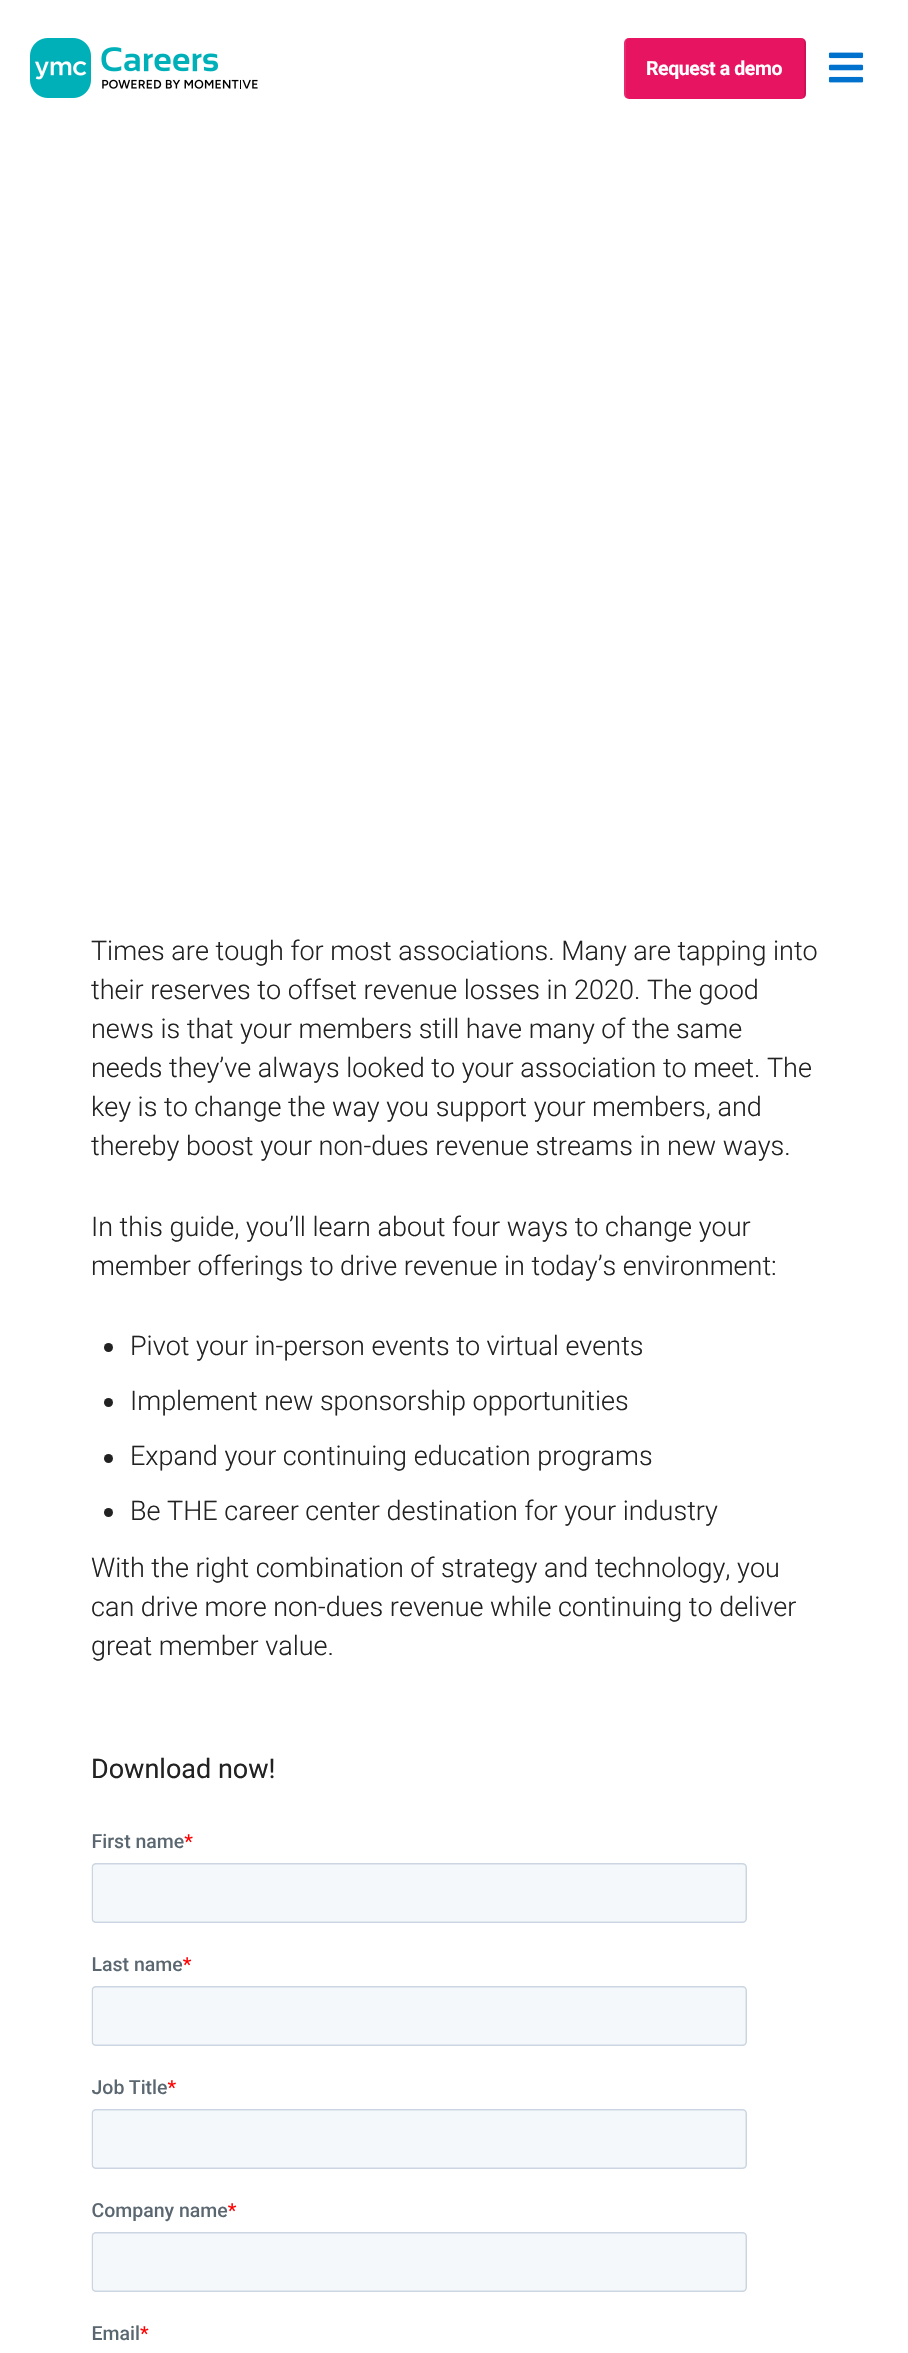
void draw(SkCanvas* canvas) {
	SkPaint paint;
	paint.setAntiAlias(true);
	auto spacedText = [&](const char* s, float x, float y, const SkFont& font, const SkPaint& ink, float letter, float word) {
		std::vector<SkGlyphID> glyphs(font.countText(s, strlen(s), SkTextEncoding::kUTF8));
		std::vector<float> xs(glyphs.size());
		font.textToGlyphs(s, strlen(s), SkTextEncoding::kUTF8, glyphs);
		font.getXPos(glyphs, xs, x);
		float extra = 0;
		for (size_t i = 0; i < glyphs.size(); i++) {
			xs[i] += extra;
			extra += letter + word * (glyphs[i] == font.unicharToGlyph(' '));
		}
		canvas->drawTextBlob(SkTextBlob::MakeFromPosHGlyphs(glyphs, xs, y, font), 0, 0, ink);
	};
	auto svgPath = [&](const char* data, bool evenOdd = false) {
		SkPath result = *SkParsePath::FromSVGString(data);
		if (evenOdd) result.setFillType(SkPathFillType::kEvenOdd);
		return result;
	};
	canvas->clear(0xffffffff);
	canvas->drawImageRect(SkImages::DeferredFromEncodedData(SkData::MakeFromFileName("img1.png")), SkRect::MakeXYWH(30, 38, 228, 60), SkSamplingOptions());
	paint.setColor(0xffe61461);
	canvas->drawRoundRect(SkRect::MakeXYWH(624, 38, 182, 61), 5, 5, paint);
	paint.setColor(0x1a000000);
	canvas->drawPath(svgPath("M806 96C805 98 802 99 801 99C803 99 804 97 804 94V42C804 40 803 38 801 38C803 38 805 39 806 41Z"), paint);
	paint.setColor(0x1afafafa);
	canvas->drawPath(svgPath("M628 38C626 38 624 40 624 42V94C624 97 626 99 628 99C627 99 626 97 626 94V42C626 40 627 38 628 38Z"), paint);
	SkFont f1(fontMgr->matchFamilyStyle("Roboto", SkFontStyle::Bold()), 19.5);
	f1.setSubpixel(true);
	paint.setColor(0xffffffff);
	spacedText("Request a demo", 646, 75, f1, paint, -0.4, 0);
	canvas->drawImageRect(SkImages::DeferredFromEncodedData(SkData::MakeFromFileName("img2.png")), SkRect::MakeXYWH(828, 52, 36, 31), SkSamplingOptions());
	SkFont f2(fontMgr->matchFamilyStyle("Roboto", SkFontStyle(300, SkFontStyle::kNormal_Width, SkFontStyle::kUpright_Slant)), 27);
	f2.setSubpixel(true);
	paint.setColor(0xff222222);
	canvas->drawString("Times are tough for most associations. Many are tapping into", 91, 960, f2, paint);
	canvas->drawString("their reserves to offset revenue losses in 2020. The good", 91, 999, f2, paint);
	canvas->drawString("news is that your members still have many of the same", 91, 1038, f2, paint);
	canvas->drawString("needs they’ve always looked to your association to meet. The", 91, 1077, f2, paint);
	canvas->drawString("key is to change the way you support your members, and", 91, 1116, f2, paint);
	canvas->drawString("thereby boost your non-dues revenue streams in new ways.", 91, 1155, f2, paint);
	canvas->drawString("In this guide, you’ll learn about four ways to change your", 91, 1236, f2, paint);
	canvas->drawString("member offerings to drive revenue in today’s environment:", 91, 1275, f2, paint);
	canvas->drawCircle(108.5, 1347.5, 4.5, paint);
	canvas->drawString("Pivot your in-person events to virtual events", 130, 1355, f2, paint);
	canvas->drawCircle(108.5, 1402.5, 4.5, paint);
	canvas->drawString("Implement new sponsorship opportunities", 130, 1410, f2, paint);
	canvas->drawCircle(108.5, 1458.5, 4.5, paint);
	canvas->drawString("Expand your continuing education programs", 130, 1465, f2, paint);
	canvas->drawCircle(108.5, 1512.5, 4.5, paint);
	canvas->drawString("Be THE career center destination for your industry", 130, 1520, f2, paint);
	canvas->drawString("With the right combination of strategy and technology, you", 91, 1577, f2, paint);
	canvas->drawString("can drive more non-dues revenue while continuing to deliver", 91, 1616, f2, paint);
	canvas->drawString("great member value.", 91, 1655, f2, paint);
	SkFont f3(fontMgr->matchFamilyStyle("Roboto", SkFontStyle::Normal()), 27);
	f3.setSubpixel(true);
	canvas->drawString("Download now!", 91, 1778, f3, paint);
	canvas->drawImageRect(SkImages::DeferredFromEncodedData(SkData::MakeFromFileName("img3.png")), SkRect::MakeXYWH(91, 1833, 656, 508), SkSamplingOptions());
}
